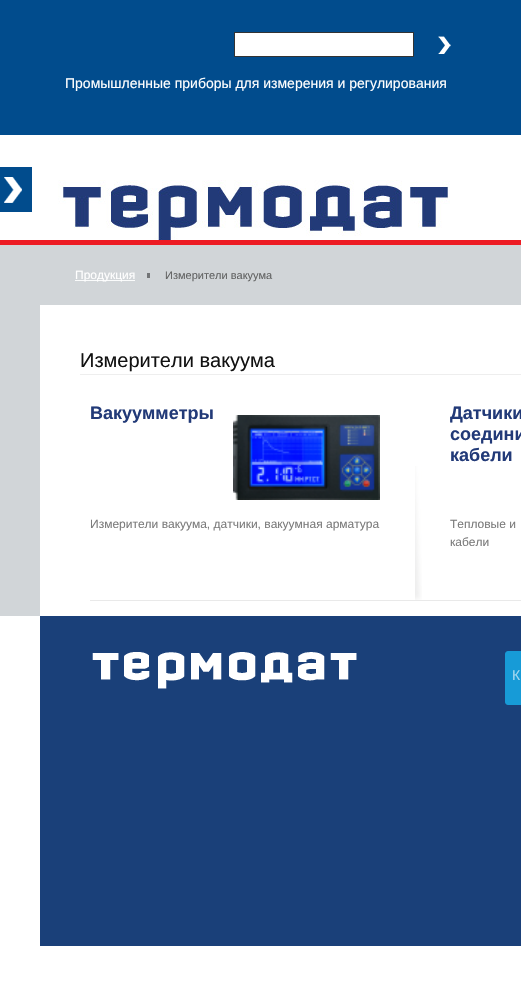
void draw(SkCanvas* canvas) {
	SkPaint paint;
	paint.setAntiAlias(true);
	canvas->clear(0xffffffff);
	paint.setColor(0xff014c8d);
	canvas->drawRect(SkRect::MakeXYWH(0, 0, 521, 135), paint);
	paint.setColor(0xffffffff);
	canvas->drawRect(SkRect::MakeXYWH(234.5, 32.5, 179, 24), paint);
	paint.setStroke(true);
	paint.setStrokeWidth(1);
	paint.setColor(0xff333333);
	canvas->drawRect(SkRect::MakeXYWH(234.5, 32.5, 179, 24), paint);
	canvas->drawImageRect(SkImages::DeferredFromEncodedData(SkData::MakeFromFileName("img1.png")), SkRect::MakeXYWH(438, 36, 13, 18), SkSamplingOptions());
	SkFont f1(fontMgr->matchFamilyStyle("Liberation Sans", SkFontStyle::Normal()), 14);
	f1.setSubpixel(true);
	paint.setStroke(false);
	paint.setColor(0xffffffff);
	canvas->drawString("Промышленные приборы для измерения и регулирования", 65, 88, f1, paint);
	paint.setColor(0xff014c8d);
	canvas->drawRect(SkRect::MakeXYWH(0, 167, 32, 45), paint);
	canvas->drawImageRect(SkImages::DeferredFromEncodedData(SkData::MakeFromFileName("img2.png")), SkRect::MakeXYWH(4, 177, 18, 26), SkSamplingOptions());
	paint.setColor(0xffed1c24);
	canvas->drawRect(SkRect::MakeXYWH(0, 240, 521, 5), paint);
	canvas->drawImageRect(SkImages::DeferredFromEncodedData(SkData::MakeFromFileName("img3.png")), SkRect::MakeXYWH(58, 180, 392, 60), SkSamplingOptions());
	paint.setColor(0xffd1d5d8);
	canvas->drawRect(SkRect::MakeXYWH(0, 245, 521, 371), paint);
	paint.setColor(0xff737577);
	canvas->drawRect(SkRect::MakeXYWH(147, 273, 3, 5), paint);
	paint.setColor(0xfffafbfb);
	canvas->drawRect(SkRect::MakeXYWH(75, 280, 60, 1), paint);
	SkFont f2(fontMgr->matchFamilyStyle("Liberation Sans", SkFontStyle::Normal()), 12);
	f2.setSubpixel(true);
	paint.setColor(0xffffffff);
	canvas->drawString("Продукция", 75, 279, f2, paint);
	SkFont f3(fontMgr->matchFamilyStyle("Liberation Sans", SkFontStyle::Normal()), 11);
	f3.setSubpixel(true);
	paint.setColor(0xff616262);
	canvas->drawString("Измерители вакуума", 165, 279, f3, paint);
	paint.setColor(0xffffffff);
	canvas->drawRect(SkRect::MakeXYWH(40, 305, 481, 311), paint);
	paint.setColor(0xffeeeeee);
	canvas->drawRect(SkRect::MakeXYWH(80, 374, 441, 1), paint);
	SkFont f4(fontMgr->matchFamilyStyle("Liberation Sans", SkFontStyle::Normal()), 20);
	f4.setSubpixel(true);
	paint.setColor(0xff121212);
	canvas->drawString("Измерители вакуума", 80, 367, f4, paint);
	SkFont f5(fontMgr->matchFamilyStyle("Liberation Sans", SkFontStyle::Bold()), 18);
	f5.setSubpixel(true);
	paint.setColor(0xff223a78);
	canvas->drawString("Вакуумметры", 90, 419, f5, paint);
	canvas->drawImageRect(SkImages::DeferredFromEncodedData(SkData::MakeFromFileName("img4.png")), SkRect::MakeXYWH(233, 415, 147, 85), SkSamplingOptions());
	paint.setColor(0xff7b7b7b);
	canvas->drawString("Измерители вакуума, датчики, вакуумная арматура", 90, 528, f2, paint);
	canvas->drawImageRect(SkImages::DeferredFromEncodedData(SkData::MakeFromFileName("img5.png")), SkRect::MakeXYWH(415, 466, 7, 134), SkSamplingOptions());
	paint.setColor(0xff223a78);
	canvas->drawString("Датчики", 450, 419, f5, paint);
	canvas->drawString("соедини", 450, 440, f5, paint);
	canvas->drawString("кабели", 450, 461, f5, paint);
	paint.setColor(0xff7b7b7b);
	canvas->drawString("Тепловые и", 450, 528, f2, paint);
	canvas->drawString("кабели", 450, 546, f2, paint);
	paint.setColor(0xffe9e9e9);
	canvas->drawRect(SkRect::MakeXYWH(90, 600, 431, 1), paint);
	paint.setColor(0xff1a4079);
	canvas->drawRect(SkRect::MakeXYWH(40, 616, 481, 330), paint);
	canvas->drawImageRect(SkImages::DeferredFromEncodedData(SkData::MakeFromFileName("img6.png")), SkRect::MakeXYWH(92, 652, 265, 37), SkSamplingOptions());
	paint.setColor(0xff179bd7);
	canvas->drawRoundRect(SkRect::MakeXYWH(505.5, 651.5, 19, 53), 2.5, 2.5, paint);
	paint.setStroke(true);
	canvas->drawRoundRect(SkRect::MakeXYWH(505.5, 651.5, 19, 53), 2.5, 2.5, paint);
	paint.setStroke(false);
	paint.setColor(0xffa2d7ef);
	canvas->drawString("К", 512, 680, f1, paint);
}
